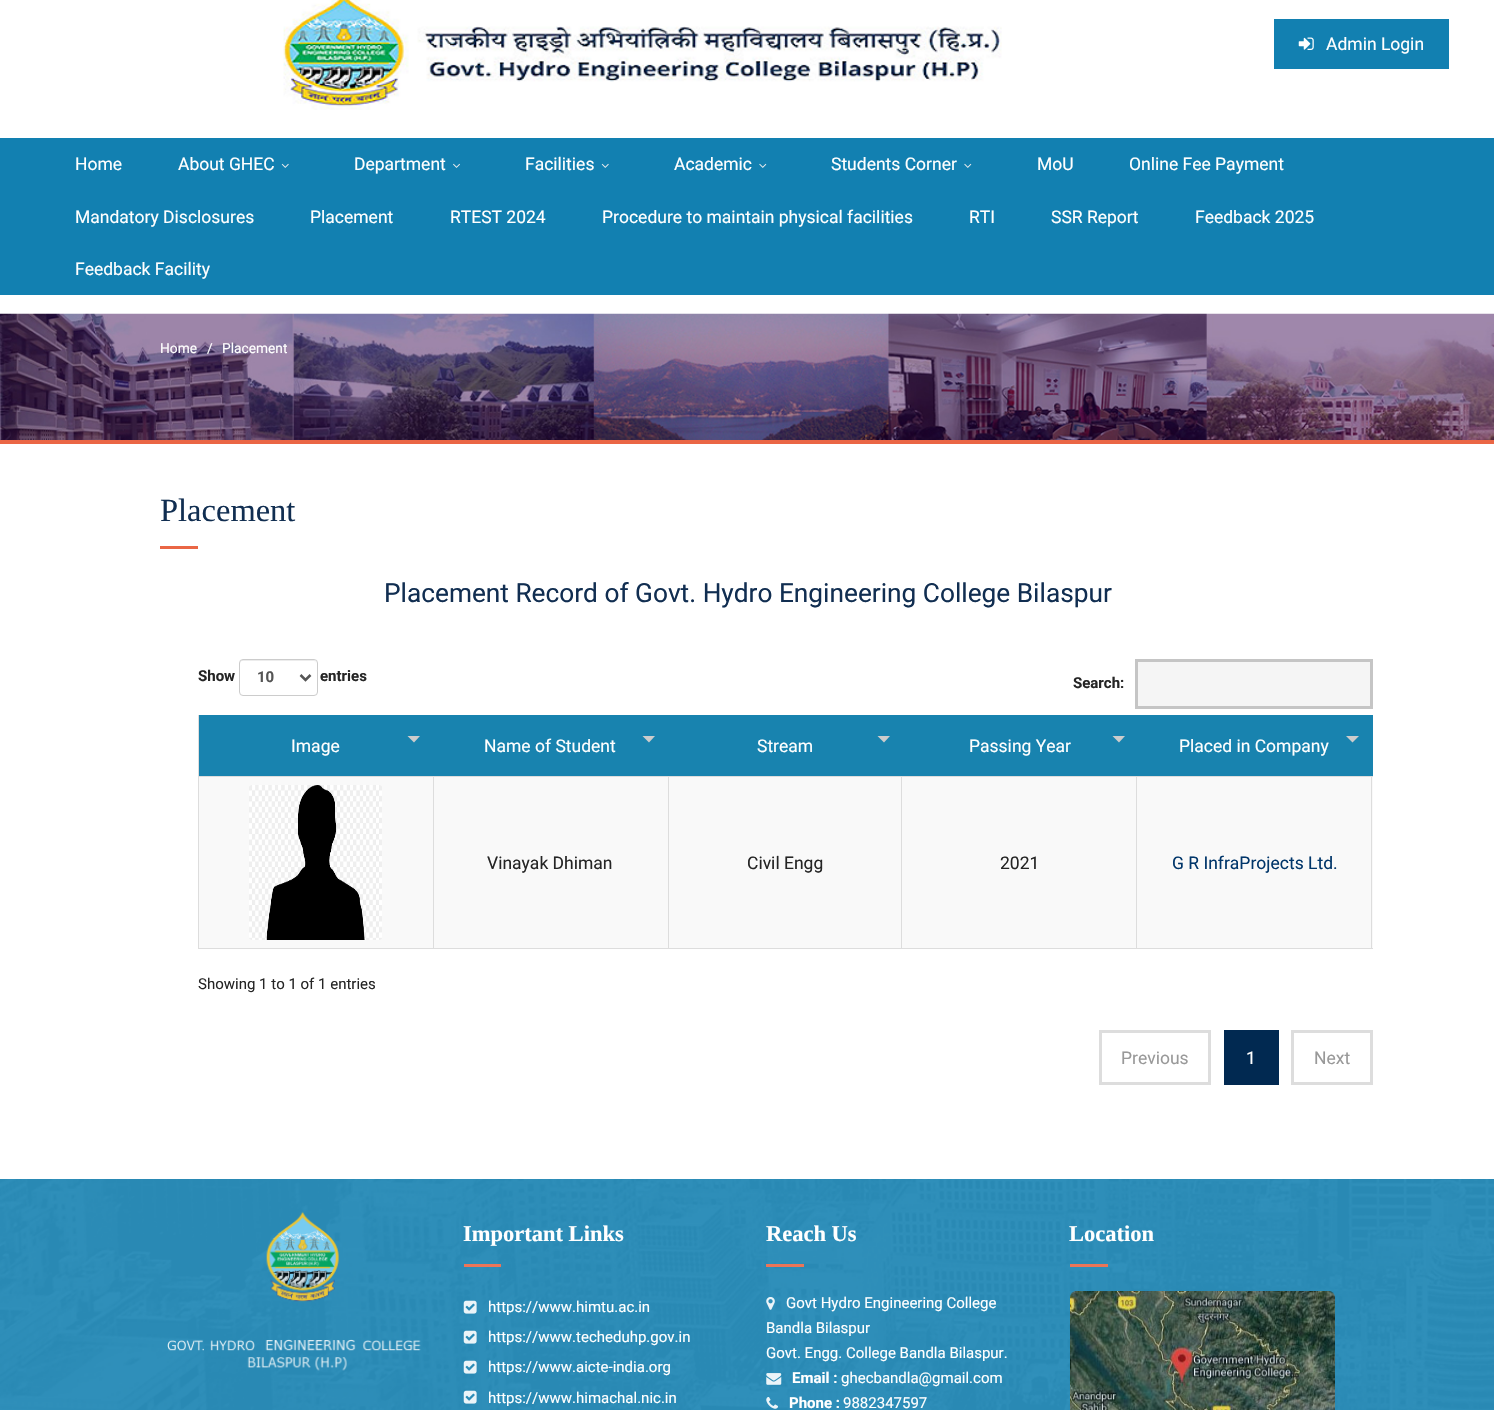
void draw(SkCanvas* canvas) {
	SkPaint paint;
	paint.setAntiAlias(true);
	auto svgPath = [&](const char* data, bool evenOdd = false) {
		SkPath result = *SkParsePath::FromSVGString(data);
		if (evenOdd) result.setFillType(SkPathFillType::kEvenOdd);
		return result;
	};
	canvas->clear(0xffffffff);
	canvas->drawImageRect(SkImages::DeferredFromEncodedData(SkData::MakeFromFileName("img1.png")), SkRect::MakeXYWH(283, 0, 719, 110), SkSamplingOptions());
	paint.setColor(0xff1280b1);
	canvas->drawRect(SkRect::MakeXYWH(1274, 19, 175, 50), paint);
	canvas->drawImageRect(SkImages::DeferredFromEncodedData(SkData::MakeFromFileName("img2.png")), SkRect::MakeXYWH(1298, 37, 16, 13), SkSamplingOptions());
	SkFont f1(fontMgr->matchFamilyStyle("Roboto", SkFontStyle::Normal()), 17.5);
	f1.setSubpixel(true);
	paint.setColor(0xffffffff);
	canvas->drawString("Admin Login", 1326, 50, f1, paint);
	paint.setColor(0xff1280b1);
	canvas->drawRect(SkRect::MakeXYWH(0, 138, 1494, 157), paint);
	paint.setColor(0xffffffff);
	canvas->drawString("Home", 75, 170, f1, paint);
	canvas->drawString("About GHEC", 178, 170, f1, paint);
	canvas->drawImageRect(SkImages::DeferredFromEncodedData(SkData::MakeFromFileName("img3.png")), SkRect::MakeXYWH(281, 163, 8, 5), SkSamplingOptions());
	canvas->drawString("Department", 354, 170, f1, paint);
	canvas->drawImageRect(SkImages::DeferredFromEncodedData(SkData::MakeFromFileName("img4.png")), SkRect::MakeXYWH(453, 163, 7, 5), SkSamplingOptions());
	canvas->drawString("Facilities", 525, 170, f1, paint);
	canvas->drawImageRect(SkImages::DeferredFromEncodedData(SkData::MakeFromFileName("img3.png")), SkRect::MakeXYWH(601, 163, 8, 5), SkSamplingOptions());
	canvas->drawString("Academic", 674, 170, f1, paint);
	canvas->drawImageRect(SkImages::DeferredFromEncodedData(SkData::MakeFromFileName("img5.png")), SkRect::MakeXYWH(759, 163, 8, 5), SkSamplingOptions());
	canvas->drawString("Students Corner", 831, 170, f1, paint);
	canvas->drawImageRect(SkImages::DeferredFromEncodedData(SkData::MakeFromFileName("img5.png")), SkRect::MakeXYWH(964, 163, 8, 5), SkSamplingOptions());
	canvas->drawString("MoU", 1037, 170, f1, paint);
	canvas->drawString("Online Fee Payment", 1129, 170, f1, paint);
	canvas->drawString("Mandatory Disclosures", 75, 223, f1, paint);
	canvas->drawString("Placement", 310, 223, f1, paint);
	canvas->drawString("RTEST 2024", 450, 223, f1, paint);
	canvas->drawString("Procedure to maintain physical facilities", 602, 223, f1, paint);
	canvas->drawString("RTI", 969, 223, f1, paint);
	canvas->drawString("SSR Report", 1051, 223, f1, paint);
	canvas->drawString("Feedback 2025", 1195, 223, f1, paint);
	canvas->drawString("Feedback Facility", 75, 275, f1, paint);
	canvas->drawImageRect(SkImages::DeferredFromEncodedData(SkData::MakeFromFileName("img6.png")), SkRect::MakeXYWH(0, 313, 1494, 127), SkSamplingOptions());
	paint.setColor(0xffea6645);
	canvas->drawRect(SkRect::MakeXYWH(0, 440, 1494, 4), paint);
	SkFont f2(fontMgr->matchFamilyStyle("Roboto", SkFontStyle::Normal()), 13.75);
	f2.setSubpixel(true);
	paint.setColor(0xffffffff);
	canvas->drawString("Home", 160, 353, f2, paint);
	canvas->drawString("/", 207, 353, f2, paint);
	canvas->drawString("Placement", 222, 353, f2, paint);
	SkFont f3(fontMgr->matchFamilyStyle("Liberation Serif", SkFontStyle::Normal()), 32.5);
	f3.setSubpixel(true);
	paint.setColor(0xff112e51);
	canvas->drawString("Placement", 160, 521, f3, paint);
	paint.setColor(0xffea6645);
	canvas->drawRect(SkRect::MakeXYWH(160, 546, 38, 3), paint);
	SkFont f4(fontMgr->matchFamilyStyle("Roboto", SkFontStyle::Normal()), 26.25);
	f4.setSubpixel(true);
	paint.setColor(0xff112e51);
	canvas->drawString("Placement Record of Govt. Hydro Engineering College Bilaspur", 384, 602, f4, paint);
	SkFont f5(fontMgr->matchFamilyStyle("Roboto", SkFontStyle::Bold()), 15);
	f5.setSubpixel(true);
	paint.setColor(0xff252525);
	canvas->drawString("Show", 198, 681, f5, paint);
	paint.setColor(0xffececec);
	canvas->drawPath(svgPath("M242 661H314C315 661 316 662 316 664C316 657 307 660 302 660H254C249 660 240 657 240 664C240 662 241 661 242 661Z"), paint);
	paint.setStroke(true);
	paint.setStrokeWidth(1);
	paint.setColor(0xffcccccc);
	canvas->drawRoundRect(SkRect::MakeXYWH(239.5, 659.5, 78, 36), 3.5, 3.5, paint);
	paint.setStrokeWidth(2.5);
	paint.setColor(0xff555555);
	canvas->drawPath(svgPath("M300.5 675L305.5 680L310.5 675"), paint);
	paint.setStroke(false);
	canvas->drawString("10", 257, 682, f5, paint);
	paint.setColor(0xff252525);
	canvas->drawString("entries", 320, 681, f5, paint);
	canvas->drawString("Search:", 1073, 688, f5, paint);
	paint.setColor(0xfff5f5f5);
	canvas->drawRect(SkRect::MakeXYWH(1136.5, 660.5, 235, 47), paint);
	paint.setStroke(true);
	paint.setStrokeWidth(3);
	paint.setColor(0xffc5c5c5);
	canvas->drawRect(SkRect::MakeXYWH(1136.5, 660.5, 235, 47), paint);
	paint.setStroke(false);
	paint.setColor(0xfff9f9f9);
	canvas->drawRect(SkRect::MakeXYWH(669, 777, 704, 171), paint);
	paint.setColor(0xffdddddd);
	canvas->drawRect(SkRect::MakeXYWH(1371, 777, 1, 172), paint);
	canvas->drawRect(SkRect::MakeXYWH(198, 948, 1175, 1), paint);
	canvas->drawRect(SkRect::MakeXYWH(198, 715, 1, 234), paint);
	paint.setColor(0xff1883af);
	canvas->drawRect(SkRect::MakeXYWH(199, 715, 1174, 61), paint);
	paint.setColor(0xffffffff);
	canvas->drawString("Image", 291, 752, f1, paint);
	paint.setColor(0xffcccccc);
	canvas->drawPath(svgPath("M407.5 736H420L414 742.5Z"), paint);
	paint.setColor(0xffffffff);
	canvas->drawString("Name of Student", 484, 752, f1, paint);
	paint.setColor(0xffcccccc);
	canvas->drawPath(svgPath("M642.5 736H655L649 742.5Z"), paint);
	paint.setColor(0xffffffff);
	canvas->drawString("Stream", 757, 752, f1, paint);
	paint.setColor(0xffcccccc);
	canvas->drawPath(svgPath("M877.5 736H890L884 742.5Z"), paint);
	paint.setColor(0xffffffff);
	canvas->drawString("Passing Year", 969, 752, f1, paint);
	paint.setColor(0xffcccccc);
	canvas->drawPath(svgPath("M1112.5 736H1125L1119 742.5Z"), paint);
	paint.setColor(0xffffffff);
	canvas->drawString("Placed in Company", 1179, 752, f1, paint);
	paint.setColor(0xffcccccc);
	canvas->drawPath(svgPath("M1346 736H1359L1352.5 742.5Z"), paint);
	paint.setColor(0xfff9f9f9);
	canvas->drawRect(SkRect::MakeXYWH(199, 777, 234, 171), paint);
	paint.setColor(0xffdddddd);
	canvas->drawRect(SkRect::MakeXYWH(1136, 776, 237, 1), paint);
	canvas->drawRect(SkRect::MakeXYWH(1136, 776, 1, 173), paint);
	canvas->drawRect(SkRect::MakeXYWH(901, 776, 237, 1), paint);
	canvas->drawRect(SkRect::MakeXYWH(901, 776, 1, 173), paint);
	canvas->drawRect(SkRect::MakeXYWH(668, 776, 235, 1), paint);
	canvas->drawRect(SkRect::MakeXYWH(668, 776, 1, 173), paint);
	canvas->drawRect(SkRect::MakeXYWH(433, 776, 236, 1), paint);
	canvas->drawRect(SkRect::MakeXYWH(433, 776, 1, 173), paint);
	canvas->drawRect(SkRect::MakeXYWH(198, 776, 236, 1), paint);
	canvas->drawImageRect(SkImages::DeferredFromEncodedData(SkData::MakeFromFileName("img7.png")), SkRect::MakeXYWH(249, 785, 133, 155), SkSamplingOptions());
	paint.setColor(0xfff9f9f9);
	canvas->drawRect(SkRect::MakeXYWH(434, 777, 234, 171), paint);
	paint.setColor(0xff252525);
	canvas->drawString("Vinayak Dhiman", 487, 869, f1, paint);
	canvas->drawString("Civil Engg", 747, 869, f1, paint);
	canvas->drawString("2021", 1000, 869, f1, paint);
	paint.setColor(0xff01366a);
	canvas->drawString("G R InfraProjects Ltd.", 1172, 869, f1, paint);
	SkFont f6(fontMgr->matchFamilyStyle("Roboto", SkFontStyle::Normal()), 15);
	f6.setSubpixel(true);
	paint.setColor(0xff252525);
	canvas->drawString("Showing 1 to 1 of 1 entries", 198, 989, f6, paint);
	paint.setStroke(true);
	paint.setColor(0xffdddddd);
	canvas->drawRect(SkRect::MakeXYWH(1100.5, 1031.5, 109, 52), paint);
	paint.setStroke(false);
	paint.setColor(0xff999999);
	canvas->drawString("Previous", 1121, 1064, f1, paint);
	paint.setColor(0xff012951);
	canvas->drawRect(SkRect::MakeXYWH(1224, 1030, 55, 55), paint);
	paint.setColor(0xffffffff);
	canvas->drawString("1", 1246, 1064, f1, paint);
	paint.setStroke(true);
	paint.setColor(0xffdddddd);
	canvas->drawRect(SkRect::MakeXYWH(1292.5, 1031.5, 79, 52), paint);
	paint.setStroke(false);
	paint.setColor(0xff999999);
	canvas->drawString("Next", 1314, 1064, f1, paint);
	paint.setColor(0xff2a8db9);
	canvas->drawRect(SkRect::MakeXYWH(0, 1179, 1494, 231), paint);
	canvas->drawImageRect(SkImages::DeferredFromEncodedData(SkData::MakeFromFileName("img8.png")), SkRect::MakeXYWH(0, 1179, 1494, 231), SkSamplingOptions());
	canvas->drawImageRect(SkImages::DeferredFromEncodedData(SkData::MakeFromFileName("img9.png")), SkRect::MakeXYWH(266, 1211, 73, 91), SkSamplingOptions());
	canvas->drawImageRect(SkImages::DeferredFromEncodedData(SkData::MakeFromFileName("img10.png")), SkRect::MakeXYWH(167, 1339, 254, 32), SkSamplingOptions());
	SkFont f7(fontMgr->matchFamilyStyle("Liberation Serif", SkFontStyle::Bold()), 22.5);
	f7.setSubpixel(true);
	paint.setColor(0xffffffff);
	canvas->drawString("Important Links", 463, 1241, f7, paint);
	paint.setColor(0xffec7558);
	canvas->drawRect(SkRect::MakeXYWH(464, 1264, 37, 3), paint);
	canvas->drawImageRect(SkImages::DeferredFromEncodedData(SkData::MakeFromFileName("img11.png")), SkRect::MakeXYWH(463, 1300, 14, 14), SkSamplingOptions());
	paint.setColor(0xffffffff);
	canvas->drawString("https://www.himtu.ac.in", 488, 1312, f6, paint);
	canvas->drawImageRect(SkImages::DeferredFromEncodedData(SkData::MakeFromFileName("img12.png")), SkRect::MakeXYWH(463, 1330, 14, 14), SkSamplingOptions());
	canvas->drawString("https://www.techeduhp.gov.in", 488, 1342, f6, paint);
	canvas->drawImageRect(SkImages::DeferredFromEncodedData(SkData::MakeFromFileName("img13.png")), SkRect::MakeXYWH(463, 1360, 14, 14), SkSamplingOptions());
	canvas->drawString("https://www.aicte-india.org", 488, 1372, f6, paint);
	canvas->drawImageRect(SkImages::DeferredFromEncodedData(SkData::MakeFromFileName("img14.png")), SkRect::MakeXYWH(463, 1390, 14, 14), SkSamplingOptions());
	canvas->drawString("https://www.himachal.nic.in", 488, 1403, f6, paint);
	canvas->drawString("Reach Us", 766, 1241, f7, paint);
	paint.setColor(0xffec7558);
	canvas->drawRect(SkRect::MakeXYWH(766, 1264, 38, 3), paint);
	canvas->drawImageRect(SkImages::DeferredFromEncodedData(SkData::MakeFromFileName("img15.png")), SkRect::MakeXYWH(766, 1297, 9, 13), SkSamplingOptions());
	paint.setColor(0xffffffff);
	canvas->drawString("Govt Hydro Engineering College", 786, 1308, f6, paint);
	canvas->drawString("Bandla Bilaspur", 766, 1333, f6, paint);
	canvas->drawString("Govt. Engg. College Bandla Bilaspur.", 766, 1358, f6, paint);
	canvas->drawImageRect(SkImages::DeferredFromEncodedData(SkData::MakeFromFileName("img16.png")), SkRect::MakeXYWH(766, 1373, 16, 12), SkSamplingOptions());
	canvas->drawString("Email :", 792, 1383, f5, paint);
	canvas->drawString("ghecbandla@gmail.com", 841, 1383, f6, paint);
	canvas->drawImageRect(SkImages::DeferredFromEncodedData(SkData::MakeFromFileName("img17.png")), SkRect::MakeXYWH(766, 1397, 12, 12), SkSamplingOptions());
	canvas->drawString("Phone :", 789, 1408, f5, paint);
	canvas->drawString("9882347597", 843, 1408, f6, paint);
	canvas->drawString("Location", 1069, 1241, f7, paint);
	paint.setColor(0xffec7558);
	canvas->drawRect(SkRect::MakeXYWH(1070, 1264, 38, 3), paint);
	canvas->drawImageRect(SkImages::DeferredFromEncodedData(SkData::MakeFromFileName("img18.png")), SkRect::MakeXYWH(1070, 1291, 265, 119), SkSamplingOptions());
}
